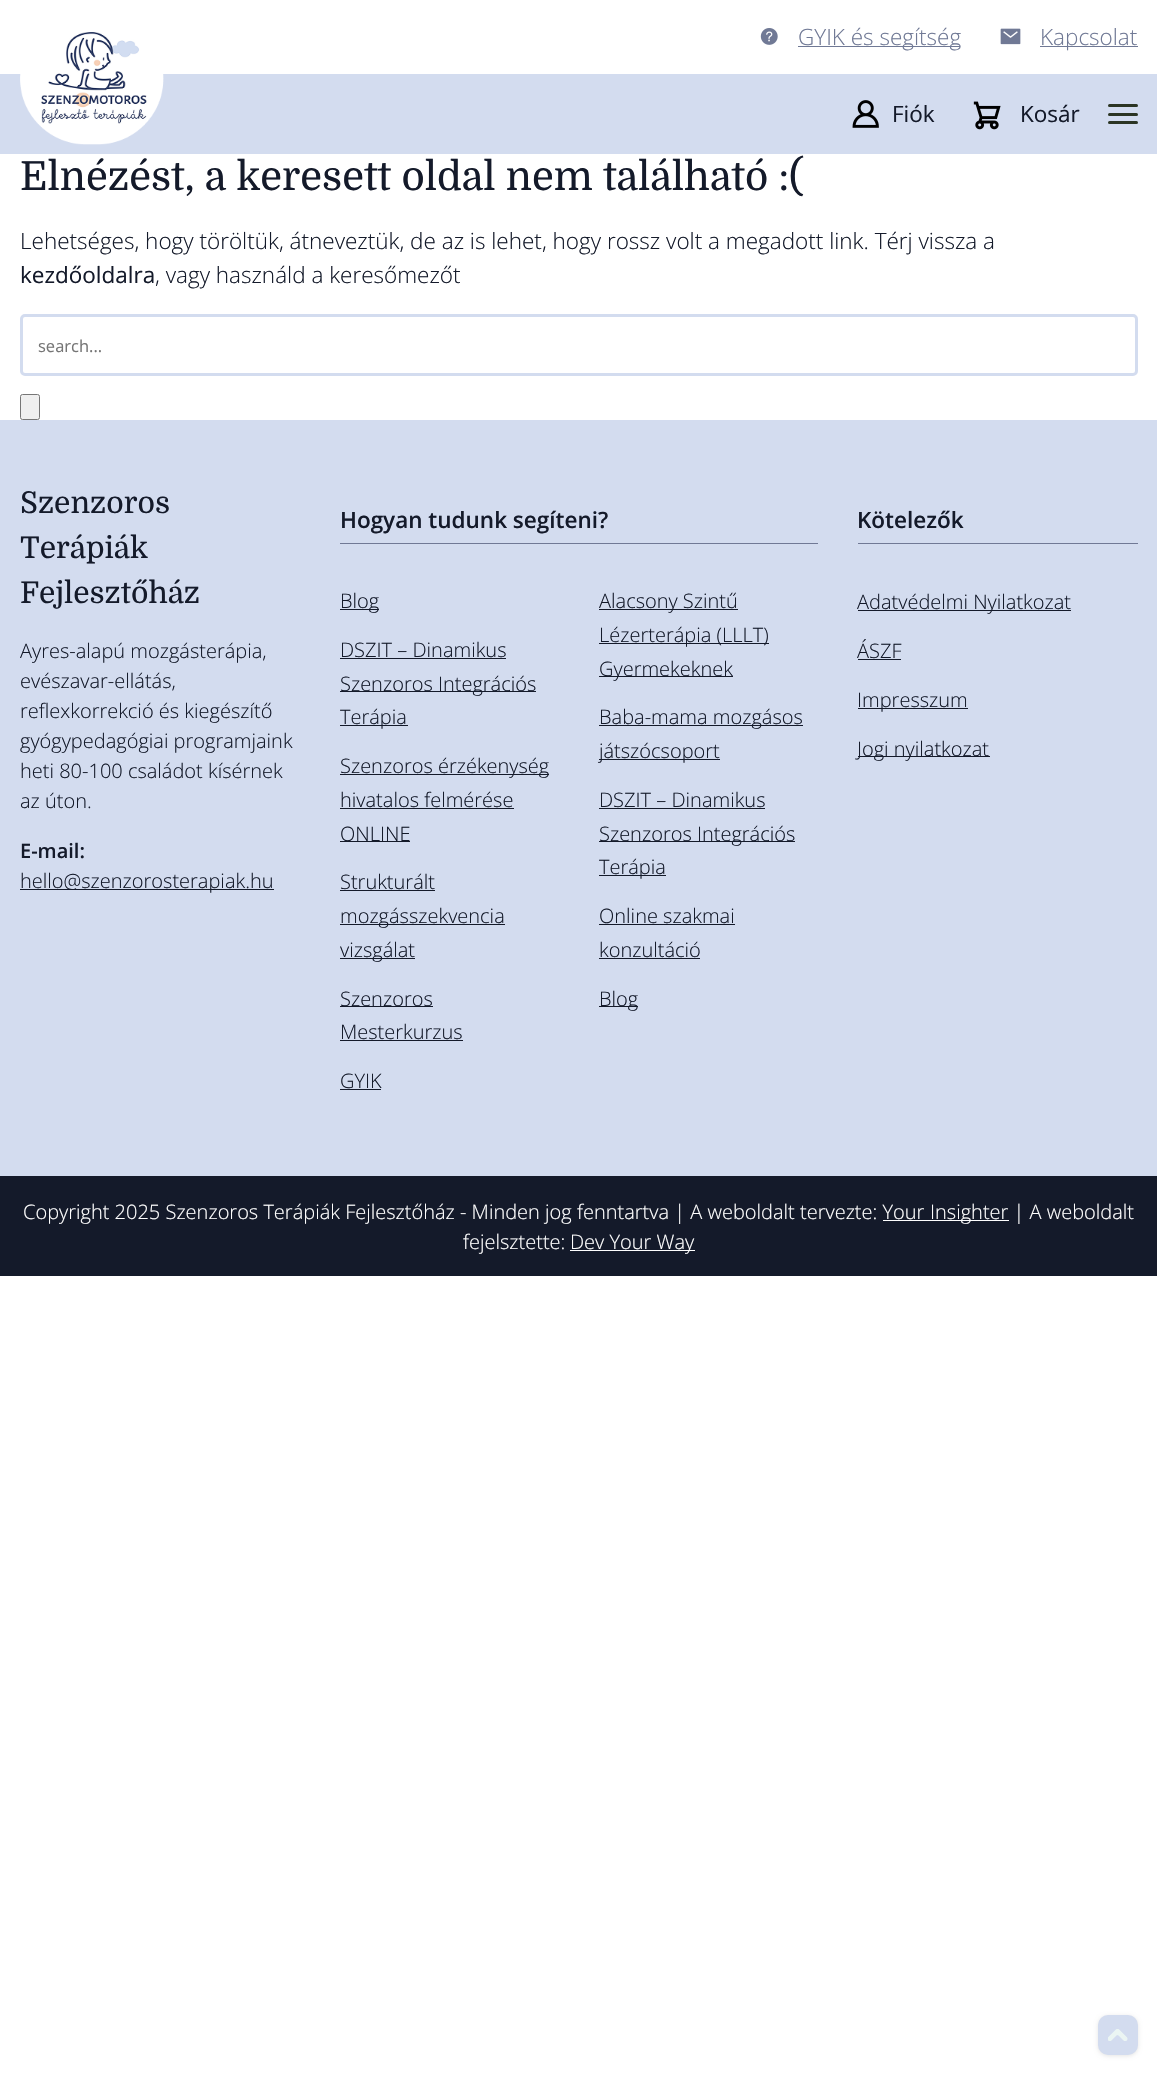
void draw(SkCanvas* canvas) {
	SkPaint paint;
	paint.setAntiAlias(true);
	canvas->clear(0xffffffff);
	canvas->drawImageRect(SkImages::DeferredFromEncodedData(SkData::MakeFromFileName("img1.png")), SkRect::MakeXYWH(760, 28, 18, 17), SkSamplingOptions());
	paint.setColor(0xff707995);
	canvas->drawRect(SkRect::MakeXYWH(798, 46, 162, 1), paint);
	SkFont f1(fontMgr->matchFamilyStyle("Open Sans", SkFontStyle(300, SkFontStyle::kNormal_Width, SkFontStyle::kUpright_Slant)), 22.5);
	f1.setSubpixel(true);
	canvas->drawString("GYIK és segítség", 798, 45, f1, paint);
	canvas->drawImageRect(SkImages::DeferredFromEncodedData(SkData::MakeFromFileName("img2.png")), SkRect::MakeXYWH(1000, 28, 21, 17), SkSamplingOptions());
	canvas->drawRect(SkRect::MakeXYWH(1040, 46, 98, 1), paint);
	canvas->drawString("Kapcsolat", 1040, 45, f1, paint);
	paint.setColor(0xffd3dcef);
	canvas->drawRect(SkRect::MakeXYWH(0, 74, 1157, 80), paint);
	canvas->drawImageRect(SkImages::DeferredFromEncodedData(SkData::MakeFromFileName("img3.png")), SkRect::MakeXYWH(20, 32, 144, 113), SkSamplingOptions());
	canvas->drawImageRect(SkImages::DeferredFromEncodedData(SkData::MakeFromFileName("img4.png")), SkRect::MakeXYWH(852, 100, 27, 28), SkSamplingOptions());
	SkFont f2(fontMgr->matchFamilyStyle("Open Sans", SkFontStyle::Normal()), 22.5);
	f2.setSubpixel(true);
	paint.setColor(0xff141a2a);
	canvas->drawString("Fiók", 892, 122, f2, paint);
	canvas->drawImageRect(SkImages::DeferredFromEncodedData(SkData::MakeFromFileName("img5.png")), SkRect::MakeXYWH(973, 101, 28, 29), SkSamplingOptions());
	canvas->drawString("Kosár", 1020, 122, f2, paint);
	paint.setColor(0xff2b3524);
	canvas->drawRoundRect(SkRect::MakeXYWH(1108, 104, 30, 3), 1.5, 1.5, paint);
	canvas->drawRoundRect(SkRect::MakeXYWH(1108, 113, 30, 3), 1.5, 1.5, paint);
	canvas->drawRoundRect(SkRect::MakeXYWH(1108, 121, 30, 3), 1.5, 1.5, paint);
	SkFont f3(fontMgr->matchFamilyStyle("Domine", SkFontStyle::Normal()), 40);
	f3.setSubpixel(true);
	paint.setColor(0xff141a2a);
	canvas->drawString("Elnézést, a keresett oldal nem található :(", 20, 190, f3, paint);
	canvas->drawString("Lehetséges, hogy töröltük, átneveztük, de az is lehet, hogy rossz volt a megadott link. Térj vissza a", 20, 249, f1, paint);
	canvas->drawString("kezdőoldalra", 20, 283, f2, paint);
	canvas->drawString(", vagy használd a keresőmezőt", 155, 283, f1, paint);
	paint.setStroke(true);
	paint.setStrokeWidth(3);
	paint.setColor(0xffd3dcef);
	canvas->drawRoundRect(SkRect::MakeXYWH(21.5, 315.5, 1115, 59), 3.5, 3.5, paint);
	SkFont f4(fontMgr->matchFamilyStyle("Open Sans", SkFontStyle::Normal()), 16.5);
	f4.setSubpixel(true);
	paint.setStroke(false);
	paint.setColor(0xff757575);
	canvas->drawString("search...", 38, 352, f4, paint);
	paint.setColor(0xffefefef);
	canvas->drawRoundRect(SkRect::MakeXYWH(20.5, 394.5, 19, 25), 2, 2, paint);
	paint.setStroke(true);
	paint.setStrokeWidth(1);
	paint.setColor(0xff767676);
	canvas->drawRoundRect(SkRect::MakeXYWH(20.5, 394.5, 19, 25), 2, 2, paint);
	paint.setStroke(false);
	paint.setColor(0xffd3dcef);
	canvas->drawRect(SkRect::MakeXYWH(0, 420, 1157, 756), paint);
	SkFont f5(fontMgr->matchFamilyStyle("Domine", SkFontStyle::Normal()), 30);
	f5.setSubpixel(true);
	paint.setColor(0xff141a2a);
	canvas->drawString("Szenzoros", 20, 513, f5, paint);
	canvas->drawString("Terápiák", 20, 558, f5, paint);
	canvas->drawString("Fejlesztőház", 20, 603, f5, paint);
	SkFont f6(fontMgr->matchFamilyStyle("Open Sans", SkFontStyle(300, SkFontStyle::kNormal_Width, SkFontStyle::kUpright_Slant)), 20);
	f6.setSubpixel(true);
	canvas->drawString("Ayres-alapú mozgásterápia,", 20, 658, f6, paint);
	canvas->drawString("evészavar-ellátás,", 20, 688, f6, paint);
	canvas->drawString("reflexkorrekció és kiegészítő", 20, 718, f6, paint);
	canvas->drawString("gyógypedagógiai programjaink", 20, 748, f6, paint);
	canvas->drawString("heti 80-100 családot kísérnek", 20, 778, f6, paint);
	canvas->drawString("az úton.", 20, 808, f6, paint);
	SkFont f7(fontMgr->matchFamilyStyle("Open Sans", SkFontStyle(600, SkFontStyle::kNormal_Width, SkFontStyle::kUpright_Slant)), 20);
	f7.setSubpixel(true);
	canvas->drawString("E-mail:", 20, 858, f7, paint);
	canvas->drawRect(SkRect::MakeXYWH(20, 889, 254, 1), paint);
	canvas->drawString("hello@szenzorosterapiak.hu", 20, 888, f6, paint);
	paint.setColor(0xff707995);
	canvas->drawRect(SkRect::MakeXYWH(340, 543, 478, 1), paint);
	SkFont f8(fontMgr->matchFamilyStyle("Open Sans", SkFontStyle(600, SkFontStyle::kNormal_Width, SkFontStyle::kUpright_Slant)), 22.5);
	f8.setSubpixel(true);
	paint.setColor(0xff141a2a);
	canvas->drawString("Hogyan tudunk segíteni?", 340, 528, f8, paint);
	canvas->drawRect(SkRect::MakeXYWH(340, 609, 39, 1), paint);
	canvas->drawString("Blog", 340, 608, f6, paint);
	canvas->drawString("DSZIT – Dinamikus", 340, 657, f6, paint);
	canvas->drawRect(SkRect::MakeXYWH(340, 658, 166, 1), paint);
	canvas->drawRect(SkRect::MakeXYWH(340, 691, 196, 1), paint);
	canvas->drawString("Szenzoros Integrációs", 340, 691, f6, paint);
	canvas->drawRect(SkRect::MakeXYWH(340, 725, 68, 1), paint);
	canvas->drawString("Terápia", 340, 724, f6, paint);
	canvas->drawRect(SkRect::MakeXYWH(340, 774, 209, 1), paint);
	canvas->drawString("Szenzoros érzékenység", 340, 773, f6, paint);
	canvas->drawString("hivatalos felmérése", 340, 807, f6, paint);
	canvas->drawRect(SkRect::MakeXYWH(340, 808, 174, 1), paint);
	canvas->drawRect(SkRect::MakeXYWH(340, 841, 70, 1), paint);
	canvas->drawString("ONLINE", 340, 841, f6, paint);
	canvas->drawString("Strukturált", 340, 889, f6, paint);
	canvas->drawRect(SkRect::MakeXYWH(340, 890, 95, 1), paint);
	canvas->drawRect(SkRect::MakeXYWH(340, 924, 165, 1), paint);
	canvas->drawString("mozgásszekvencia", 340, 923, f6, paint);
	canvas->drawRect(SkRect::MakeXYWH(340, 958, 75, 1), paint);
	canvas->drawString("vizsgálat", 340, 957, f6, paint);
	canvas->drawRect(SkRect::MakeXYWH(340, 1006, 93, 1), paint);
	canvas->drawString("Szenzoros", 340, 1006, f6, paint);
	canvas->drawString("Mesterkurzus", 340, 1039, f6, paint);
	canvas->drawRect(SkRect::MakeXYWH(340, 1040, 123, 1), paint);
	canvas->drawString("GYIK", 340, 1088, f6, paint);
	canvas->drawRect(SkRect::MakeXYWH(340, 1089, 41, 1), paint);
	canvas->drawRect(SkRect::MakeXYWH(599, 609, 139, 1), paint);
	canvas->drawString("Alacsony Szintű", 599, 608, f6, paint);
	canvas->drawRect(SkRect::MakeXYWH(599, 643, 170, 1), paint);
	canvas->drawString("Lézerterápia (LLLT)", 599, 642, f6, paint);
	canvas->drawRect(SkRect::MakeXYWH(599, 676, 134, 1), paint);
	canvas->drawString("Gyermekeknek", 599, 676, f6, paint);
	canvas->drawRect(SkRect::MakeXYWH(599, 725, 204, 1), paint);
	canvas->drawString("Baba-mama mozgásos", 599, 724, f6, paint);
	canvas->drawRect(SkRect::MakeXYWH(599, 759, 121, 1), paint);
	canvas->drawString("játszócsoport", 599, 758, f6, paint);
	canvas->drawString("DSZIT – Dinamikus", 599, 807, f6, paint);
	canvas->drawRect(SkRect::MakeXYWH(599, 808, 166, 1), paint);
	canvas->drawRect(SkRect::MakeXYWH(599, 841, 196, 1), paint);
	canvas->drawString("Szenzoros Integrációs", 599, 841, f6, paint);
	canvas->drawRect(SkRect::MakeXYWH(599, 875, 67, 1), paint);
	canvas->drawString("Terápia", 599, 874, f6, paint);
	canvas->drawString("Online szakmai", 599, 923, f6, paint);
	canvas->drawRect(SkRect::MakeXYWH(599, 924, 136, 1), paint);
	canvas->drawString("konzultáció", 599, 957, f6, paint);
	canvas->drawRect(SkRect::MakeXYWH(599, 958, 101, 1), paint);
	canvas->drawRect(SkRect::MakeXYWH(599, 1006, 39, 1), paint);
	canvas->drawString("Blog", 599, 1006, f6, paint);
	paint.setColor(0xff707995);
	canvas->drawRect(SkRect::MakeXYWH(858, 543, 280, 1), paint);
	paint.setColor(0xff141a2a);
	canvas->drawString("Kötelezők", 857, 528, f8, paint);
	canvas->drawRect(SkRect::MakeXYWH(858, 610, 213, 1), paint);
	canvas->drawString("Adatvédelmi Nyilatkozat", 857, 609, f6, paint);
	canvas->drawString("ÁSZF", 857, 658, f6, paint);
	canvas->drawRect(SkRect::MakeXYWH(858, 659, 43, 1), paint);
	canvas->drawRect(SkRect::MakeXYWH(858, 708, 110, 1), paint);
	canvas->drawString("Impresszum", 857, 707, f6, paint);
	canvas->drawRect(SkRect::MakeXYWH(858, 756, 132, 1), paint);
	canvas->drawString("Jogi nyilatkozat", 857, 756, f6, paint);
	canvas->drawRect(SkRect::MakeXYWH(0, 1176, 1157, 100), paint);
	paint.setColor(0xffffffff);
	canvas->drawString("Copyright 2025 Szenzoros Terápiák Fejlesztőház - Minden jog fenntartva | A weboldalt tervezte: Your", 23, 1219, f6, paint);
	canvas->drawRect(SkRect::MakeXYWH(883, 1220, 126, 1), paint);
	canvas->drawString("Insighter | A weboldalt", 930, 1219, f6, paint);
	canvas->drawString("fejelsztette:", 463, 1249, f6, paint);
	canvas->drawRect(SkRect::MakeXYWH(570, 1250, 125, 1), paint);
	canvas->drawString("Dev Your Way", 570, 1249, f6, paint);
	paint.setColor(0x1a000000);
	paint.setMaskFilter(SkMaskFilter::MakeBlur(kNormal_SkBlurStyle, 2));
	canvas->drawRoundRect(SkRect::MakeXYWH(1098, 2016, 40, 40), 10, 10, paint);
	paint.setMaskFilter(nullptr);
	paint.setColor(0xffd3dcef);
	canvas->drawRoundRect(SkRect::MakeXYWH(1098, 2015, 40, 40), 10, 10, paint);
	canvas->drawImageRect(SkImages::DeferredFromEncodedData(SkData::MakeFromFileName("img6.png")), SkRect::MakeXYWH(1108, 2029, 20, 12), SkSamplingOptions());
}
